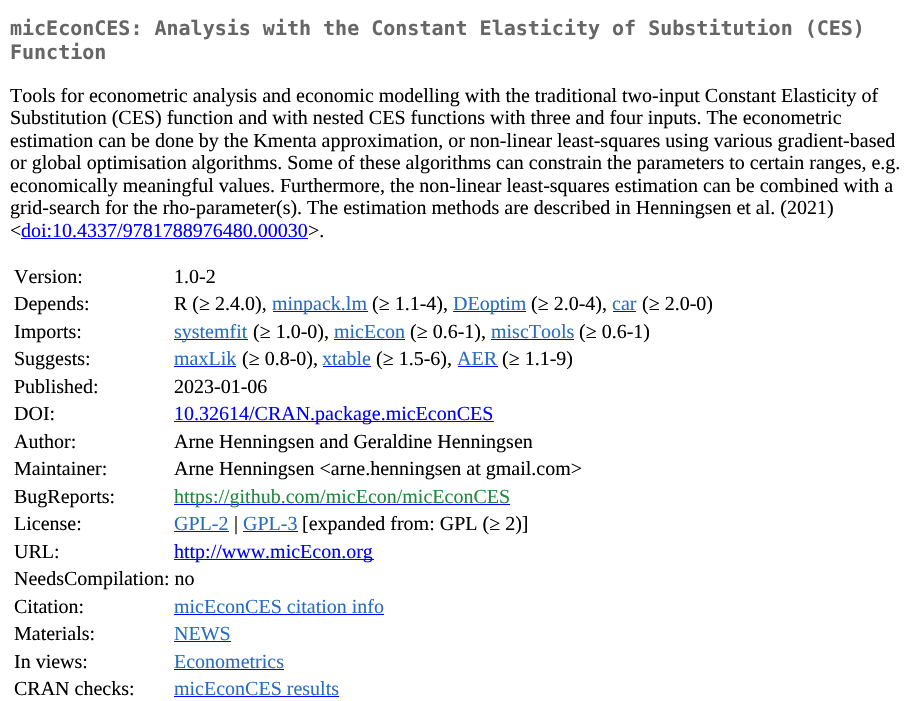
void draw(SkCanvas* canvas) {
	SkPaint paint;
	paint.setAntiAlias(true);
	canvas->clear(0xffffffff);
	SkFont f1(fontMgr->matchFamilyStyle("DejaVu Sans Mono", SkFontStyle::Bold()), 20);
	f1.setSubpixel(true);
	paint.setColor(0xff666666);
	canvas->drawString("micEconCES: Analysis with the Constant Elasticity of Substitution (CES)", 10, 35, f1, paint);
	canvas->drawString("Function", 10, 59, f1, paint);
	SkFont f2(fontMgr->matchFamilyStyle("Liberation Serif", SkFontStyle::Normal()), 20);
	f2.setSubpixel(true);
	paint.setColor(0xff000000);
	canvas->drawString("Tools for econometric analysis and economic modelling with the traditional two-input Constant Elasticity of", 10, 102, f2, paint);
	canvas->drawString("Substitution (CES) function and with nested CES functions with three and four inputs. The econometric", 10, 124, f2, paint);
	canvas->drawString("estimation can be done by the Kmenta approximation, or non-linear least-squares using various gradient-based", 10, 147, f2, paint);
	canvas->drawString("or global optimisation algorithms. Some of these algorithms can constrain the parameters to certain ranges, e.g.", 10, 169, f2, paint);
	canvas->drawString("economically meaningful values. Furthermore, the non-linear least-squares estimation can be combined with a", 10, 192, f2, paint);
	canvas->drawString("grid-search for the rho-parameter(s). The estimation methods are described in Henningsen et al. (2021)", 10, 214, f2, paint);
	canvas->drawString("<", 10, 237, f2, paint);
	paint.setColor(0xff0000ff);
	canvas->drawString("doi:10.4337/9781788976480.00030", 21, 237, f2, paint);
	canvas->drawRect(SkRect::MakeXYWH(21, 238, 287, 1), paint);
	paint.setColor(0xff000000);
	canvas->drawString(">.", 308, 237, f2, paint);
	canvas->drawString("Version:", 14, 283, f2, paint);
	canvas->drawString("1.0-2", 174, 283, f2, paint);
	canvas->drawString("Depends:", 14, 310, f2, paint);
	canvas->drawString("R (≥ 2.4.0),", 174, 310, f2, paint);
	paint.setColor(0xff0000ff);
	canvas->drawRect(SkRect::MakeXYWH(273, 311, 95, 1), paint);
	paint.setColor(0xff276dc3);
	canvas->drawString("minpack.lm", 272, 310, f2, paint);
	paint.setColor(0xff000000);
	canvas->drawString("(≥ 1.1-4),", 372, 310, f2, paint);
	paint.setColor(0xff0000ff);
	canvas->drawRect(SkRect::MakeXYWH(453, 311, 73, 1), paint);
	paint.setColor(0xff276dc3);
	canvas->drawString("DEoptim", 453, 310, f2, paint);
	paint.setColor(0xff000000);
	canvas->drawString("(≥ 2.0-4),", 531, 310, f2, paint);
	paint.setColor(0xff276dc3);
	canvas->drawString("car", 612, 310, f2, paint);
	paint.setColor(0xff0000ff);
	canvas->drawRect(SkRect::MakeXYWH(613, 311, 23, 1), paint);
	paint.setColor(0xff000000);
	canvas->drawString("(≥ 2.0-0)", 642, 310, f2, paint);
	canvas->drawString("Imports:", 14, 338, f2, paint);
	paint.setColor(0xff0000ff);
	canvas->drawRect(SkRect::MakeXYWH(174, 339, 74, 1), paint);
	paint.setColor(0xff276dc3);
	canvas->drawString("systemfit", 174, 338, f2, paint);
	paint.setColor(0xff000000);
	canvas->drawString("(≥ 1.0-0),", 253, 338, f2, paint);
	paint.setColor(0xff276dc3);
	canvas->drawString("micEcon", 334, 338, f2, paint);
	paint.setColor(0xff0000ff);
	canvas->drawRect(SkRect::MakeXYWH(334, 339, 71, 1), paint);
	paint.setColor(0xff000000);
	canvas->drawString("(≥ 0.6-1),", 410, 338, f2, paint);
	paint.setColor(0xff276dc3);
	canvas->drawString("miscTools", 491, 338, f2, paint);
	paint.setColor(0xff0000ff);
	canvas->drawRect(SkRect::MakeXYWH(491, 339, 83, 1), paint);
	paint.setColor(0xff000000);
	canvas->drawString("(≥ 0.6-1)", 579, 338, f2, paint);
	canvas->drawString("Suggests:", 14, 365, f2, paint);
	paint.setColor(0xff276dc3);
	canvas->drawString("maxLik", 174, 365, f2, paint);
	paint.setColor(0xff0000ff);
	canvas->drawRect(SkRect::MakeXYWH(174, 366, 62, 1), paint);
	paint.setColor(0xff000000);
	canvas->drawString("(≥ 0.8-0),", 242, 365, f2, paint);
	paint.setColor(0xff276dc3);
	canvas->drawString("xtable", 322, 365, f2, paint);
	paint.setColor(0xff0000ff);
	canvas->drawRect(SkRect::MakeXYWH(323, 366, 48, 1), paint);
	paint.setColor(0xff000000);
	canvas->drawString("(≥ 1.5-6),", 376, 365, f2, paint);
	paint.setColor(0xff276dc3);
	canvas->drawString("AER", 457, 365, f2, paint);
	paint.setColor(0xff0000ff);
	canvas->drawRect(SkRect::MakeXYWH(458, 366, 40, 1), paint);
	paint.setColor(0xff000000);
	canvas->drawString("(≥ 1.1-9)", 502, 365, f2, paint);
	canvas->drawString("Published:", 14, 393, f2, paint);
	canvas->drawString("2023-01-06", 174, 393, f2, paint);
	canvas->drawString("DOI:", 14, 420, f2, paint);
	paint.setColor(0xff0000ff);
	canvas->drawRect(SkRect::MakeXYWH(174, 421, 320, 1), paint);
	canvas->drawString("10.32614/CRAN.package.micEconCES", 174, 420, f2, paint);
	paint.setColor(0xff000000);
	canvas->drawString("Author:", 14, 448, f2, paint);
	canvas->drawString("Arne Henningsen and Geraldine Henningsen", 174, 448, f2, paint);
	canvas->drawString("Maintainer:", 14, 475, f2, paint);
	canvas->drawString("Arne Henningsen <arne.henningsen at gmail.com>", 174, 475, f2, paint);
	canvas->drawString("BugReports:", 14, 503, f2, paint);
	paint.setColor(0xff0000ff);
	canvas->drawRect(SkRect::MakeXYWH(174, 504, 336, 1), paint);
	paint.setColor(0xff1f883d);
	canvas->drawString("https://github.com/micEcon/micEconCES", 174, 503, f2, paint);
	paint.setColor(0xff000000);
	canvas->drawString("License:", 14, 530, f2, paint);
	paint.setColor(0xff276dc3);
	canvas->drawString("GPL-2", 174, 530, f2, paint);
	paint.setColor(0xff0000ff);
	canvas->drawRect(SkRect::MakeXYWH(174, 531, 55, 1), paint);
	paint.setColor(0xff000000);
	canvas->drawString("|", 234, 530, f2, paint);
	paint.setColor(0xff276dc3);
	canvas->drawString("GPL-3", 243, 530, f2, paint);
	paint.setColor(0xff0000ff);
	canvas->drawRect(SkRect::MakeXYWH(243, 531, 55, 1), paint);
	paint.setColor(0xff000000);
	canvas->drawString("[expanded from: GPL (≥ 2)]", 302, 530, f2, paint);
	canvas->drawString("URL:", 14, 558, f2, paint);
	paint.setColor(0xff0000ff);
	canvas->drawRect(SkRect::MakeXYWH(174, 559, 200, 1), paint);
	canvas->drawString("http://www.micEcon.org", 174, 558, f2, paint);
	paint.setColor(0xff000000);
	canvas->drawString("NeedsCompilation: no", 14, 585, f2, paint);
	canvas->drawString("Citation:", 14, 613, f2, paint);
	paint.setColor(0xff276dc3);
	canvas->drawString("micEconCES citation info", 174, 613, f2, paint);
	paint.setColor(0xff0000ff);
	canvas->drawRect(SkRect::MakeXYWH(174, 614, 210, 1), paint);
	paint.setColor(0xff000000);
	canvas->drawString("Materials:", 14, 640, f2, paint);
	paint.setColor(0xff276dc3);
	canvas->drawString("NEWS", 174, 640, f2, paint);
	paint.setColor(0xff0000ff);
	canvas->drawRect(SkRect::MakeXYWH(174, 641, 57, 1), paint);
	paint.setColor(0xff000000);
	canvas->drawString("In views:", 14, 668, f2, paint);
	paint.setColor(0xff276dc3);
	canvas->drawString("Econometrics", 174, 668, f2, paint);
	paint.setColor(0xff0000ff);
	canvas->drawRect(SkRect::MakeXYWH(174, 669, 110, 1), paint);
	paint.setColor(0xff000000);
	canvas->drawString("CRAN checks:", 14, 695, f2, paint);
	paint.setColor(0xff276dc3);
	canvas->drawString("micEconCES results", 174, 695, f2, paint);
	paint.setColor(0xff0000ff);
	canvas->drawRect(SkRect::MakeXYWH(174, 696, 165, 1), paint);
}
